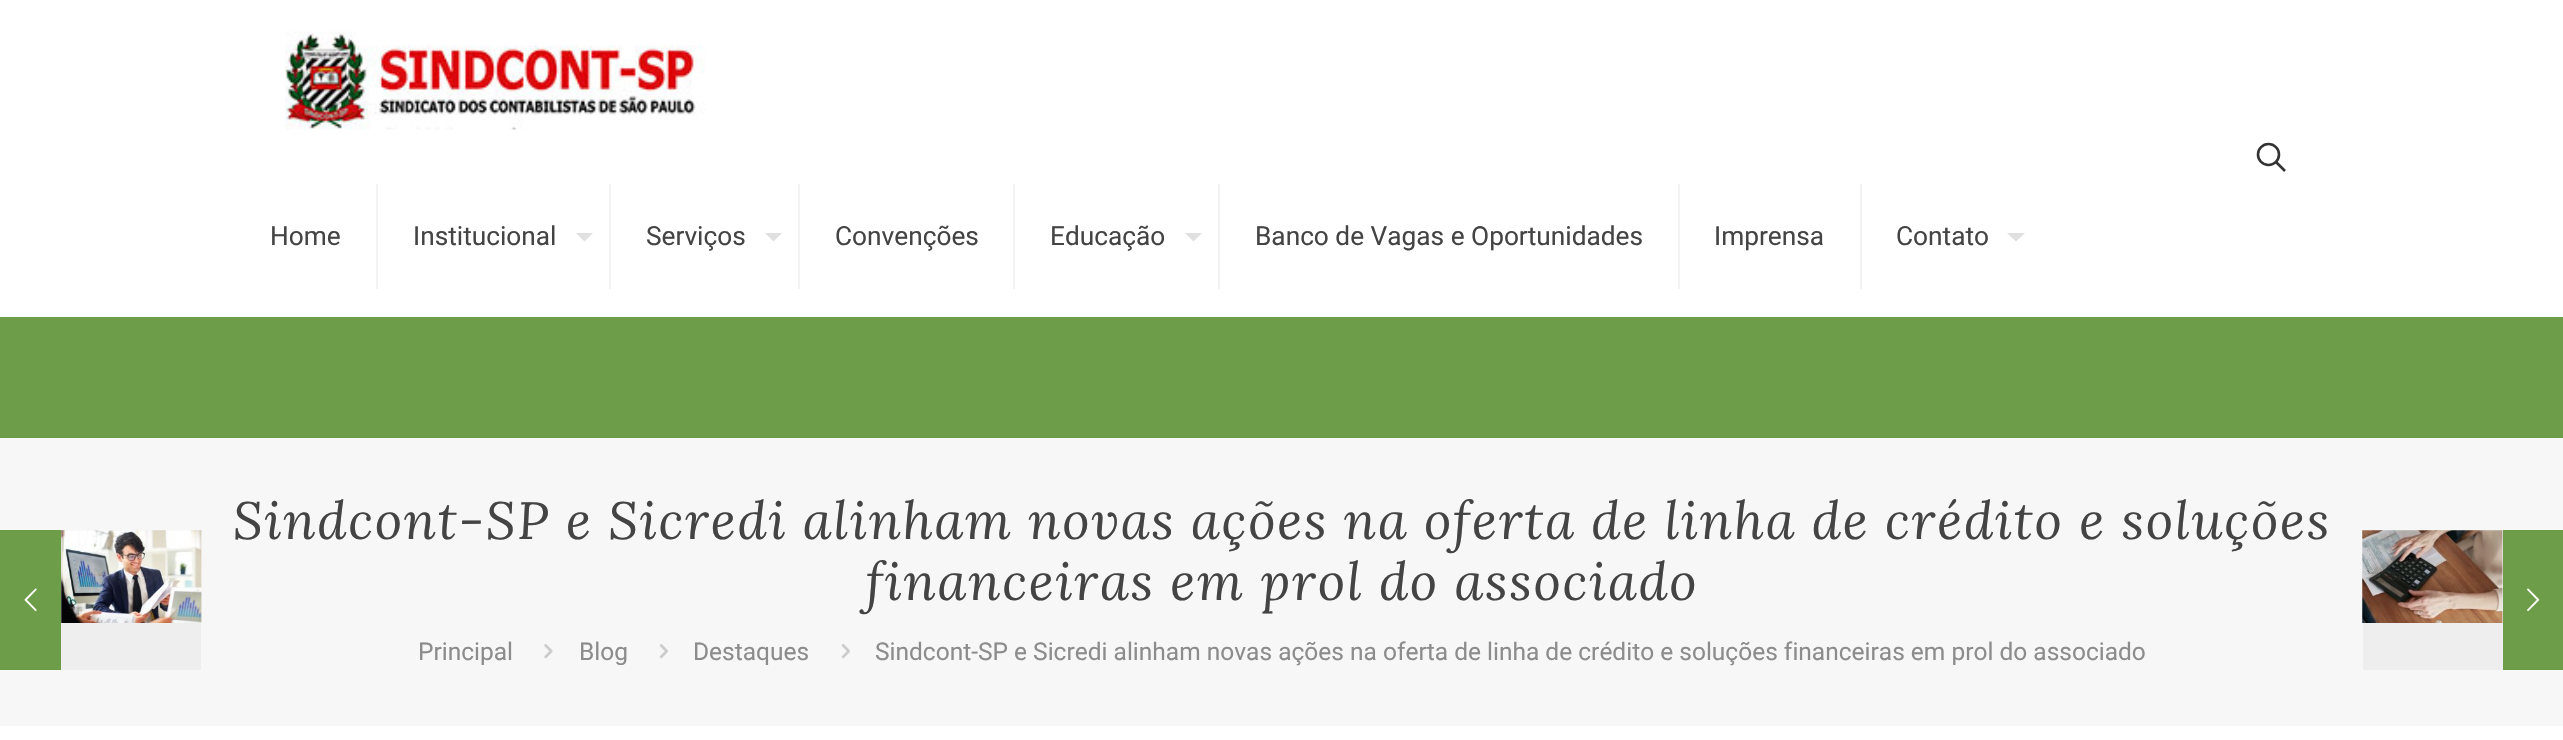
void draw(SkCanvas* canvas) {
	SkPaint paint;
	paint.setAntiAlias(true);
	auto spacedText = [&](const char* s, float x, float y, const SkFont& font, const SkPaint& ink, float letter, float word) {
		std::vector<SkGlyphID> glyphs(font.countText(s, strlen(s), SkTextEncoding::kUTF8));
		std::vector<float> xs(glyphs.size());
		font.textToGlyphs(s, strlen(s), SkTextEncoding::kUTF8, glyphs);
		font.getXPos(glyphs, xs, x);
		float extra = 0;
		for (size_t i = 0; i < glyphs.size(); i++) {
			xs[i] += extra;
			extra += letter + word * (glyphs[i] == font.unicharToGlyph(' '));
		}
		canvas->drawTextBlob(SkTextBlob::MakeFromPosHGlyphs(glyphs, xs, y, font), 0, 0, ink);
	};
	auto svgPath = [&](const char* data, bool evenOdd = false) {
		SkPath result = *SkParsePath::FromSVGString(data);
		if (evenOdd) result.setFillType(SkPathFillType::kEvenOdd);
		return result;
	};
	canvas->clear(0xffffffff);
	paint.setColor(0xfff7f7f7);
	canvas->drawRect(SkRect::MakeXYWH(0, 438, 2563, 288), paint);
	paint.setColor(0xff6d9d48);
	canvas->drawRect(SkRect::MakeXYWH(0, 530, 61, 140), paint);
	canvas->drawImageRect(SkImages::DeferredFromEncodedData(SkData::MakeFromFileName("img1.png")), SkRect::MakeXYWH(24, 588, 13, 24), SkSamplingOptions());
	paint.setColor(0xffeeeeee);
	canvas->drawRect(SkRect::MakeXYWH(61, 530, 140, 140), paint);
	canvas->drawImageRect(SkImages::DeferredFromEncodedData(SkData::MakeFromFileName("img6.png")), SkRect::MakeXYWH(201, 530, 1, 93), SkSamplingOptions());
	canvas->drawImageRect(SkImages::DeferredFromEncodedData(SkData::MakeFromFileName("img2.png")), SkRect::MakeXYWH(61, 530, 141, 93), SkSamplingOptions());
	paint.setColor(0xff6d9d48);
	canvas->drawRect(SkRect::MakeXYWH(0, 317, 2563, 121), paint);
	paint.setStroke(true);
	paint.setStrokeWidth(2.6);
	paint.setColor(0xff333333);
	canvas->drawCircle(2268.5, 154.5, 10.5, paint);
	canvas->drawPath(svgPath("M2276 162L2285 171"), paint);
	canvas->drawImageRect(SkImages::DeferredFromEncodedData(SkData::MakeFromFileName("img3.png")), SkRect::MakeXYWH(285, 31, 420, 99), SkSamplingOptions());
	paint.setStroke(false);
	paint.setColor(0xfff2f2f2);
	canvas->drawRect(SkRect::MakeXYWH(376, 184, 2, 105), paint);
	SkFont f1(fontMgr->matchFamilyStyle("Roboto", SkFontStyle::Normal()), 26.25);
	f1.setSubpixel(true);
	paint.setColor(0xff444444);
	canvas->drawString("Home", 270, 245, f1, paint);
	paint.setColor(0xfff2f2f2);
	canvas->drawRect(SkRect::MakeXYWH(609, 184, 2, 105), paint);
	paint.setColor(0xff444444);
	canvas->drawString("Institucional", 413, 245, f1, paint);
	paint.setColor(0xffe0e0e0);
	canvas->drawPath(svgPath("M576 233H593L584.5 241.5Z"), paint);
	paint.setColor(0xfff2f2f2);
	canvas->drawRect(SkRect::MakeXYWH(798, 184, 2, 105), paint);
	paint.setColor(0xff444444);
	canvas->drawString("Serviços", 646, 245, f1, paint);
	paint.setColor(0xffe0e0e0);
	canvas->drawPath(svgPath("M765 233H782L773.5 241.5Z"), paint);
	paint.setColor(0xfff2f2f2);
	canvas->drawRect(SkRect::MakeXYWH(1013, 184, 2, 105), paint);
	paint.setColor(0xff444444);
	canvas->drawString("Convenções", 835, 245, f1, paint);
	paint.setColor(0xfff2f2f2);
	canvas->drawRect(SkRect::MakeXYWH(1218, 184, 2, 105), paint);
	paint.setColor(0xff444444);
	canvas->drawString("Educação", 1050, 245, f1, paint);
	paint.setColor(0xffe0e0e0);
	canvas->drawPath(svgPath("M1185 233H1202L1193.5 241.5Z"), paint);
	paint.setColor(0xfff2f2f2);
	canvas->drawRect(SkRect::MakeXYWH(1678, 184, 2, 105), paint);
	paint.setColor(0xff444444);
	canvas->drawString("Banco de Vagas e Oportunidades", 1255, 245, f1, paint);
	paint.setColor(0xfff2f2f2);
	canvas->drawRect(SkRect::MakeXYWH(1860, 184, 2, 105), paint);
	paint.setColor(0xff444444);
	canvas->drawString("Imprensa", 1714, 245, f1, paint);
	canvas->drawString("Contato", 1896, 245, f1, paint);
	paint.setColor(0xffe0e0e0);
	canvas->drawPath(svgPath("M2007 233H2025L2016 241.5Z"), paint);
	SkFont f2(fontMgr->matchFamilyStyle("Lora", SkFontStyle::Italic()), 52.5);
	f2.setSubpixel(true);
	paint.setColor(0xff444444);
	spacedText("Sindcont-SP e Sicredi alinham novas ações na oferta de linha de crédito e soluções", 233, 539, f2, paint, 1.75, 0);
	spacedText("financeiras em prol do associado", 866, 600, f2, paint, 1.75, 0);
	SkFont f3(fontMgr->matchFamilyStyle("Roboto", SkFontStyle::Normal()), 24.5);
	f3.setSubpixel(true);
	paint.setColor(0xff8c8c8c);
	canvas->drawString("Principal", 418, 660, f3, paint);
	canvas->drawImageRect(SkImages::DeferredFromEncodedData(SkData::MakeFromFileName("img4.png")), SkRect::MakeXYWH(544, 644, 9, 15), SkSamplingOptions());
	canvas->drawString("Blog", 579, 660, f3, paint);
	canvas->drawImageRect(SkImages::DeferredFromEncodedData(SkData::MakeFromFileName("img5.png")), SkRect::MakeXYWH(659, 644, 9, 15), SkSamplingOptions());
	canvas->drawString("Destaques", 693, 660, f3, paint);
	canvas->drawImageRect(SkImages::DeferredFromEncodedData(SkData::MakeFromFileName("img5.png")), SkRect::MakeXYWH(841, 644, 9, 15), SkSamplingOptions());
	canvas->drawString("Sindcont-SP e Sicredi alinham novas ações na oferta de linha de crédito e soluções financeiras em prol do associado", 875, 660, f3, paint);
	canvas->drawImageRect(SkImages::DeferredFromEncodedData(SkData::MakeFromFileName("img7.png")), SkRect::MakeXYWH(2362, 530, 1, 93), SkSamplingOptions());
	paint.setColor(0xffeeeeee);
	canvas->drawRect(SkRect::MakeXYWH(2363, 530, 140, 140), paint);
	canvas->drawImageRect(SkImages::DeferredFromEncodedData(SkData::MakeFromFileName("img8.png")), SkRect::MakeXYWH(2362, 530, 141, 93), SkSamplingOptions());
	paint.setColor(0xff6d9d48);
	canvas->drawRect(SkRect::MakeXYWH(2503, 530, 60, 140), paint);
	canvas->drawImageRect(SkImages::DeferredFromEncodedData(SkData::MakeFromFileName("img9.png")), SkRect::MakeXYWH(2527, 588, 13, 24), SkSamplingOptions());
}
